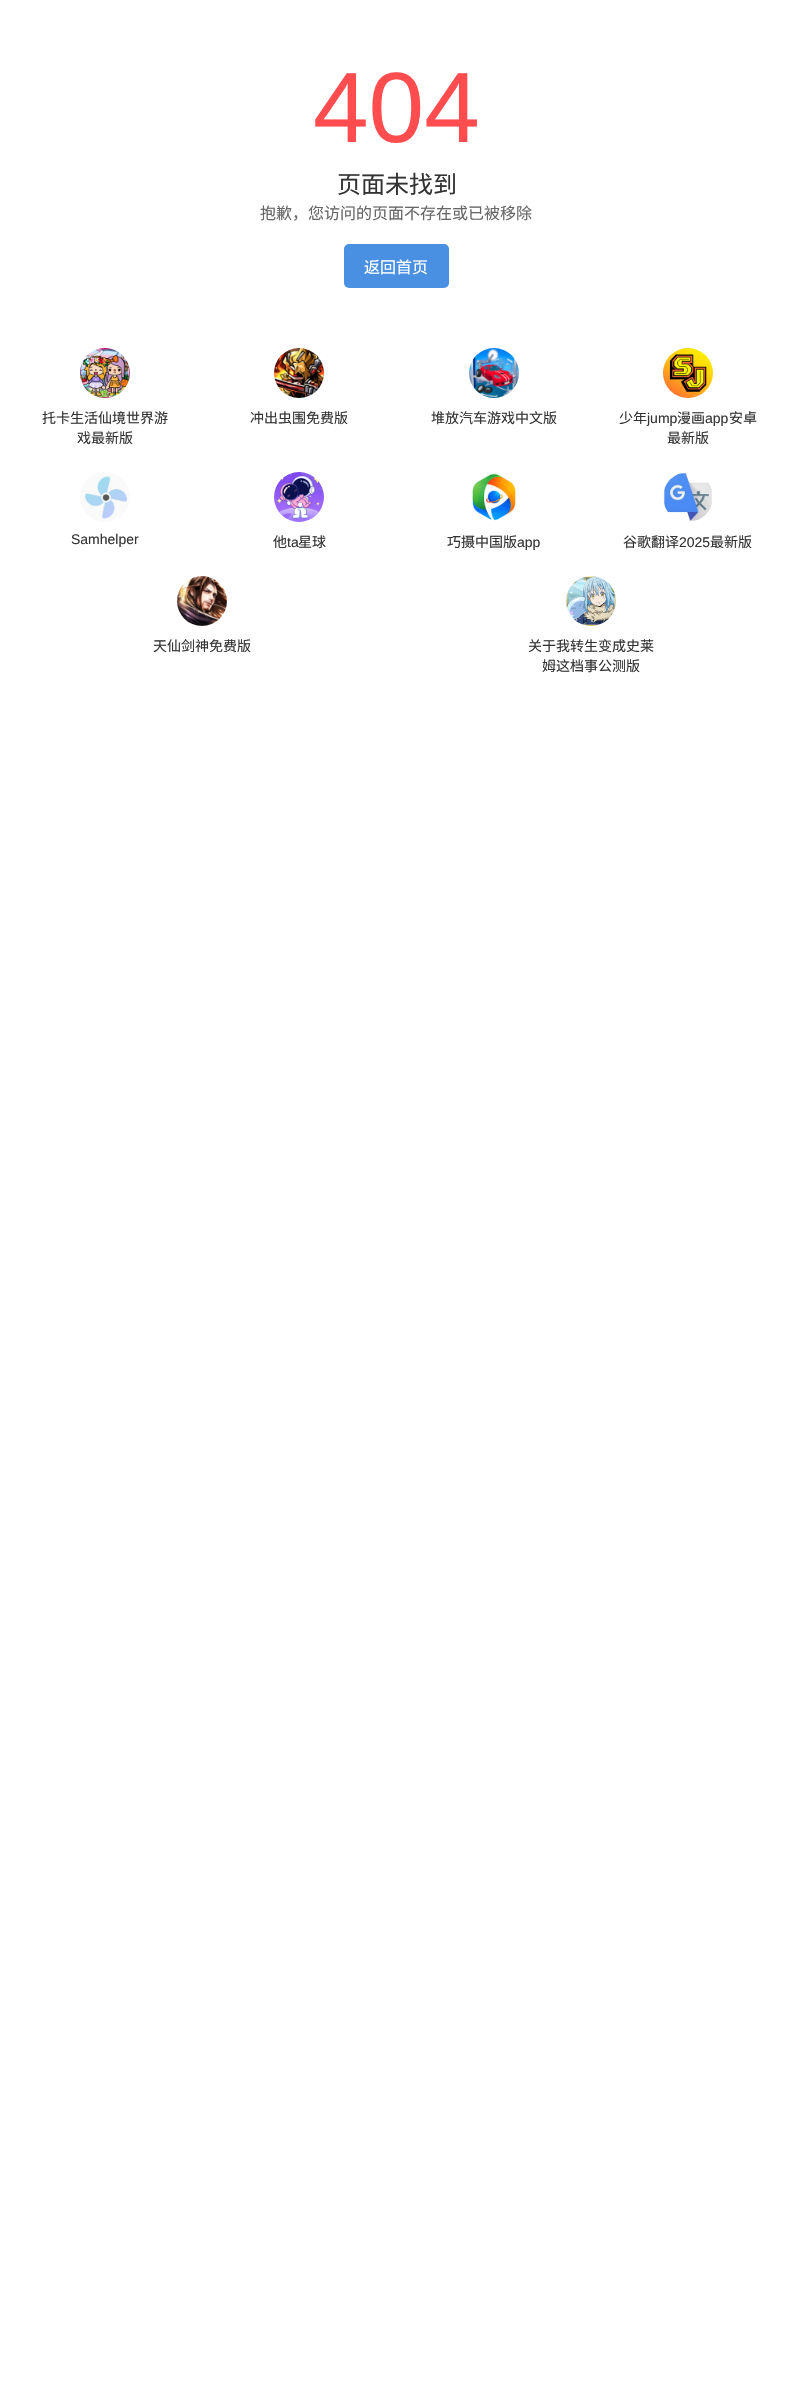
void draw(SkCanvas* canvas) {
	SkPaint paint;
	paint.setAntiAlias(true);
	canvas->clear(0xffffffff);
	SkFont f1(fontMgr->matchFamilyStyle("Liberation Sans", SkFontStyle::Normal()), 100);
	f1.setSubpixel(true);
	paint.setColor(0xffff4d4f);
	canvas->drawString("404", 313, 142, f1, paint);
	SkFont f2(fontMgr->matchFamilyStyle("Noto Sans CJK SC", SkFontStyle::Normal()), 24);
	f2.setSubpixel(true);
	paint.setColor(0xff333333);
	canvas->drawString("页面未找到", 337, 193, f2, paint);
	SkFont f3(fontMgr->matchFamilyStyle("Noto Sans CJK SC", SkFontStyle::Normal()), 16);
	f3.setSubpixel(true);
	paint.setColor(0xff666666);
	canvas->drawString("抱歉，您访问的页面不存在或已被移除", 260, 219, f3, paint);
	paint.setColor(0xff4a90e2);
	canvas->drawRoundRect(SkRect::MakeXYWH(344, 244, 105, 44), 5, 5, paint);
	paint.setColor(0xffffffff);
	canvas->drawString("返回首页", 364, 273, f3, paint);
	canvas->drawImageRect(SkImages::DeferredFromEncodedData(SkData::MakeFromFileName("img1.png")), SkRect::MakeXYWH(80, 348, 50, 50), SkSamplingOptions());
	SkFont f4(fontMgr->matchFamilyStyle("Noto Sans CJK SC", SkFontStyle::Normal()), 14);
	f4.setSubpixel(true);
	paint.setColor(0xff333333);
	canvas->drawString("托卡生活仙境世界游", 42, 423, f4, paint);
	canvas->drawString("戏最新版", 77, 443, f4, paint);
	canvas->drawImageRect(SkImages::DeferredFromEncodedData(SkData::MakeFromFileName("img2.png")), SkRect::MakeXYWH(274, 348, 50, 50), SkSamplingOptions());
	canvas->drawString("冲出虫围免费版", 250, 423, f4, paint);
	canvas->drawImageRect(SkImages::DeferredFromEncodedData(SkData::MakeFromFileName("img3.png")), SkRect::MakeXYWH(469, 348, 50, 50), SkSamplingOptions());
	canvas->drawString("堆放汽车游戏中文版", 431, 423, f4, paint);
	canvas->drawImageRect(SkImages::DeferredFromEncodedData(SkData::MakeFromFileName("img4.png")), SkRect::MakeXYWH(663, 348, 50, 50), SkSamplingOptions());
	canvas->drawString("少年", 619, 423, f4, paint);
	SkFont f5(fontMgr->matchFamilyStyle("Liberation Sans", SkFontStyle::Normal()), 14);
	f5.setSubpixel(true);
	canvas->drawString("jump", 647, 423, f5, paint);
	canvas->drawString("漫画", 677, 423, f4, paint);
	canvas->drawString("app", 705, 423, f5, paint);
	canvas->drawString("安卓", 729, 423, f4, paint);
	canvas->drawString("最新版", 667, 443, f4, paint);
	canvas->drawImageRect(SkImages::DeferredFromEncodedData(SkData::MakeFromFileName("img5.png")), SkRect::MakeXYWH(80, 472, 50, 50), SkSamplingOptions());
	canvas->drawString("Samhelper", 71, 544, f5, paint);
	canvas->drawImageRect(SkImages::DeferredFromEncodedData(SkData::MakeFromFileName("img6.png")), SkRect::MakeXYWH(274, 472, 50, 50), SkSamplingOptions());
	canvas->drawString("他", 273, 547, f4, paint);
	canvas->drawString("ta", 287, 547, f5, paint);
	canvas->drawString("星球", 298, 547, f4, paint);
	canvas->drawImageRect(SkImages::DeferredFromEncodedData(SkData::MakeFromFileName("img7.png")), SkRect::MakeXYWH(472, 473, 44, 48), SkSamplingOptions());
	canvas->drawString("巧摄中国版", 447, 547, f4, paint);
	canvas->drawString("app", 517, 547, f5, paint);
	canvas->drawImageRect(SkImages::DeferredFromEncodedData(SkData::MakeFromFileName("img8.png")), SkRect::MakeXYWH(663, 472, 49, 50), SkSamplingOptions());
	canvas->drawString("谷歌翻译", 623, 547, f4, paint);
	canvas->drawString("2025", 679, 547, f5, paint);
	canvas->drawString("最新版", 710, 547, f4, paint);
	canvas->drawImageRect(SkImages::DeferredFromEncodedData(SkData::MakeFromFileName("img9.png")), SkRect::MakeXYWH(177, 576, 50, 50), SkSamplingOptions());
	canvas->drawString("天仙剑神免费版", 153, 651, f4, paint);
	canvas->drawImageRect(SkImages::DeferredFromEncodedData(SkData::MakeFromFileName("img10.png")), SkRect::MakeXYWH(566, 576, 50, 50), SkSamplingOptions());
	canvas->drawString("关于我转生变成史莱", 528, 651, f4, paint);
	canvas->drawString("姆这档事公测版", 542, 671, f4, paint);
}
